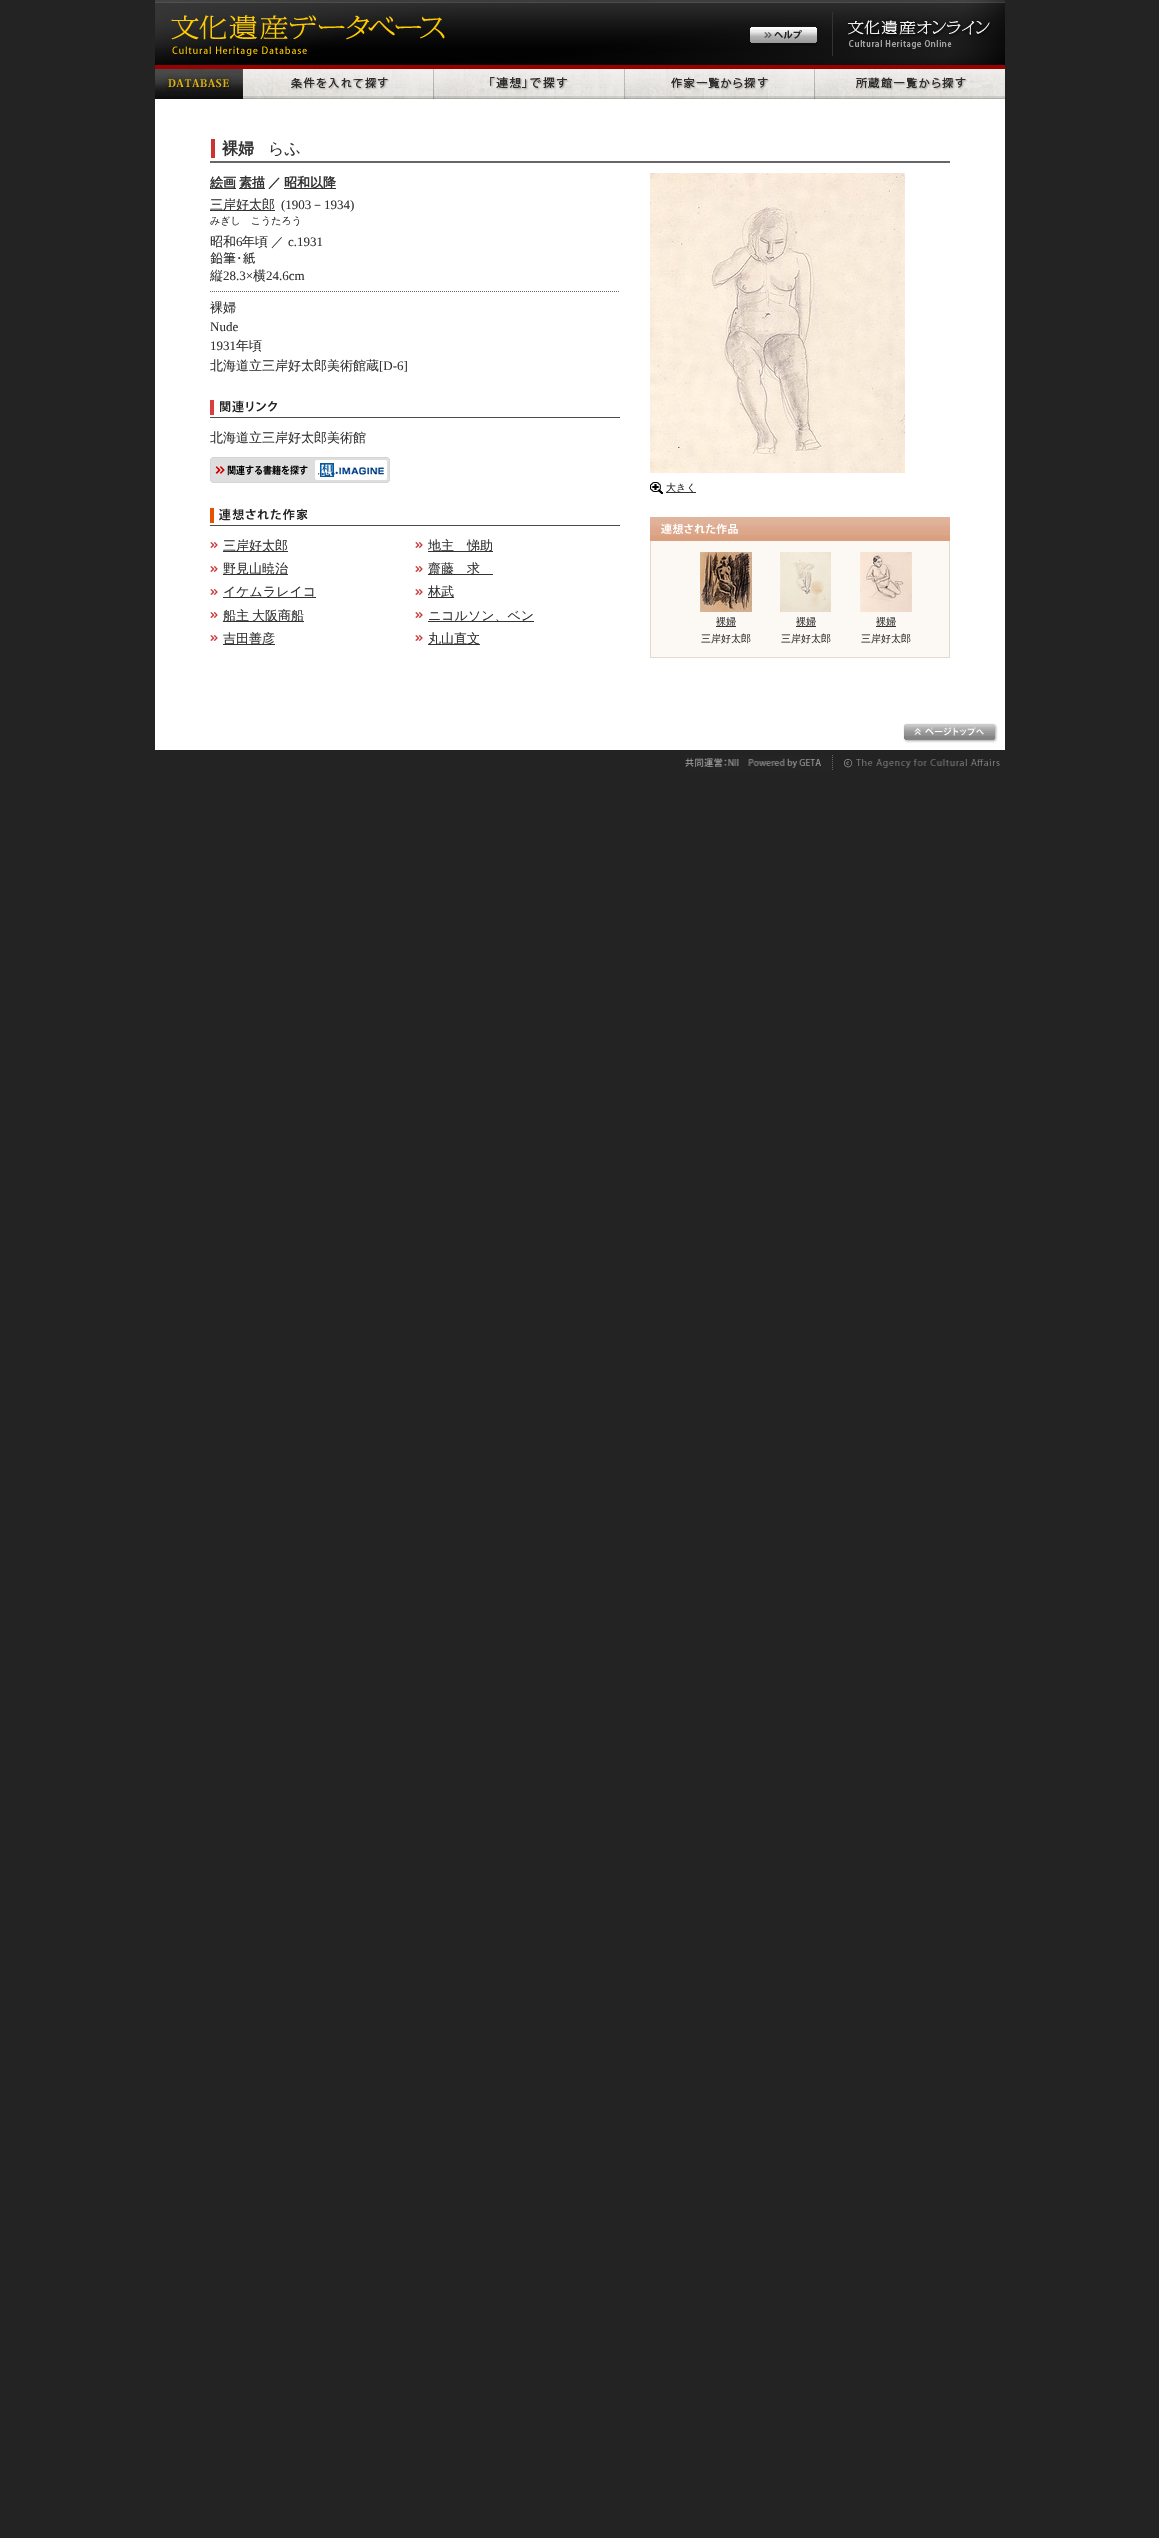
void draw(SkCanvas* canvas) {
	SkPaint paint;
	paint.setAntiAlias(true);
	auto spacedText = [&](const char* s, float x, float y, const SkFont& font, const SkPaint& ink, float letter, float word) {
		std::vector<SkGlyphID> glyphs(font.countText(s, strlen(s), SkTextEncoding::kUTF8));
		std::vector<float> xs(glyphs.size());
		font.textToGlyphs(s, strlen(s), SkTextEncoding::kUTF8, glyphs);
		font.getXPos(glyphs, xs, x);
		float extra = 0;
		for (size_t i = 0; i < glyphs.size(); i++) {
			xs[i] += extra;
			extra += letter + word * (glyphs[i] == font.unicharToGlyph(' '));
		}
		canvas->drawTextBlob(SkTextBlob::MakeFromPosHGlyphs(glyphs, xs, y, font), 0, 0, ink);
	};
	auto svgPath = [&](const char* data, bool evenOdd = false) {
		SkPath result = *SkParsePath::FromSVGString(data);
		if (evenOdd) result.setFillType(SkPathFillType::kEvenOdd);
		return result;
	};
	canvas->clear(0xff232323);
	paint.setColor(0xffffffff);
	canvas->drawRect(SkRect::MakeXYWH(155, 99, 850, 651), paint);
	canvas->drawImageRect(SkImages::DeferredFromEncodedData(SkData::MakeFromFileName("img1.png")), SkRect::MakeXYWH(155, 0, 677, 65), SkSamplingOptions());
	canvas->drawImageRect(SkImages::DeferredFromEncodedData(SkData::MakeFromFileName("img2.png")), SkRect::MakeXYWH(832, 0, 173, 65), SkSamplingOptions());
	canvas->drawImageRect(SkImages::DeferredFromEncodedData(SkData::MakeFromFileName("img3.png")), SkRect::MakeXYWH(750, 27, 67, 16), SkSamplingOptions());
	canvas->drawImageRect(SkImages::DeferredFromEncodedData(SkData::MakeFromFileName("img4.png")), SkRect::MakeXYWH(155, 65, 850, 34), SkSamplingOptions());
	paint.setColor(0xff666666);
	canvas->drawRect(SkRect::MakeXYWH(210, 161, 740, 2), paint);
	paint.setColor(0xffcc3333);
	canvas->drawRect(SkRect::MakeXYWH(211, 139, 4, 19), paint);
	SkFont f1(fontMgr->matchFamilyStyle("WenQuanYi Zen Hei", SkFontStyle::Bold()), 16);
	f1.setSubpixel(true);
	paint.setColor(0xff333333);
	canvas->drawString("裸婦", 222, 154, f1, paint);
	SkFont f2(fontMgr->matchFamilyStyle("WenQuanYi Zen Hei", SkFontStyle(500, SkFontStyle::kNormal_Width, SkFontStyle::kUpright_Slant)), 16);
	f2.setSubpixel(true);
	canvas->drawString("らふ", 268, 154, f2, paint);
	canvas->drawRect(SkRect::MakeXYWH(210, 188, 26, 1), paint);
	SkFont f3(fontMgr->matchFamilyStyle("WenQuanYi Zen Hei", SkFontStyle::Bold()), 13);
	f3.setSubpixel(true);
	canvas->drawString("絵画", 210, 187, f3, paint);
	canvas->drawRect(SkRect::MakeXYWH(239, 188, 26, 1), paint);
	canvas->drawString("素描", 239, 187, f3, paint);
	canvas->drawString("／", 268, 187, f3, paint);
	canvas->drawRect(SkRect::MakeXYWH(284, 188, 52, 1), paint);
	canvas->drawString("昭和以降", 284, 187, f3, paint);
	canvas->drawRect(SkRect::MakeXYWH(210, 210, 65, 1), paint);
	SkFont f4(fontMgr->matchFamilyStyle("WenQuanYi Zen Hei", SkFontStyle(500, SkFontStyle::kNormal_Width, SkFontStyle::kUpright_Slant)), 13);
	f4.setSubpixel(true);
	canvas->drawString("三岸好太郎", 210, 209, f4, paint);
	SkFont f5(fontMgr->matchFamilyStyle("Liberation Serif", SkFontStyle::Normal()), 13);
	f5.setSubpixel(true);
	canvas->drawString("(1903", 281, 209, f5, paint);
	canvas->drawString("－", 311, 209, f4, paint);
	canvas->drawString("1934)", 324, 209, f5, paint);
	SkFont f6(fontMgr->matchFamilyStyle("WenQuanYi Zen Hei", SkFontStyle(500, SkFontStyle::kNormal_Width, SkFontStyle::kUpright_Slant)), 10);
	f6.setSubpixel(true);
	canvas->drawString("みぎし　こうたろう", 210, 224, f6, paint);
	canvas->drawString("昭和", 210, 246, f4, paint);
	canvas->drawString("6", 236, 246, f5, paint);
	canvas->drawString("年頃", 242, 246, f4, paint);
	canvas->drawString("／", 271, 246, f4, paint);
	canvas->drawString("c.1931", 288, 246, f5, paint);
	SkFont f7(fontMgr->matchFamilyStyle("IPAPGothic", SkFontStyle::Normal()), 13);
	f7.setSubpixel(true);
	canvas->drawString("鉛筆･紙", 210, 263, f7, paint);
	canvas->drawString("縦", 210, 280, f4, paint);
	canvas->drawString("28.3×", 223, 280, f5, paint);
	canvas->drawString("横", 253, 280, f4, paint);
	canvas->drawString("24.6cm", 266, 280, f5, paint);
	paint.setStroke(true);
	paint.setStrokeWidth(1);
	paint.setColor(0xff666666);
	paint.setPathEffect(SkDashPathEffect::Make({{1, 1}}, 0));
	canvas->drawPath(svgPath("M210 291.5H620"), paint);
	paint.setPathEffect(nullptr);
	paint.setStroke(false);
	paint.setColor(0xff333333);
	canvas->drawString("裸婦", 210, 312, f4, paint);
	canvas->drawString("Nude", 210, 331, f5, paint);
	canvas->drawString("1931", 210, 350, f5, paint);
	canvas->drawString("年頃", 236, 350, f4, paint);
	canvas->drawString("北海道立三岸好太郎美術館蔵", 210, 370, f4, paint);
	canvas->drawString("[D-6]", 379, 370, f5, paint);
	canvas->drawImageRect(SkImages::DeferredFromEncodedData(SkData::MakeFromFileName("img5.png")), SkRect::MakeXYWH(210, 400, 410, 18), SkSamplingOptions());
	canvas->drawString("北海道立三岸好太郎美術館", 210, 442, f4, paint);
	canvas->drawImageRect(SkImages::DeferredFromEncodedData(SkData::MakeFromFileName("img6.png")), SkRect::MakeXYWH(210, 457, 180, 26), SkSamplingOptions());
	canvas->drawImageRect(SkImages::DeferredFromEncodedData(SkData::MakeFromFileName("img7.png")), SkRect::MakeXYWH(210, 508, 410, 18), SkSamplingOptions());
	canvas->drawImageRect(SkImages::DeferredFromEncodedData(SkData::MakeFromFileName("img8.png")), SkRect::MakeXYWH(210, 542, 8, 6), SkSamplingOptions());
	canvas->drawRect(SkRect::MakeXYWH(223, 551, 65, 1), paint);
	canvas->drawString("三岸好太郎", 223, 550, f4, paint);
	canvas->drawImageRect(SkImages::DeferredFromEncodedData(SkData::MakeFromFileName("img8.png")), SkRect::MakeXYWH(415, 542, 8, 6), SkSamplingOptions());
	canvas->drawRect(SkRect::MakeXYWH(428, 551, 65, 1), paint);
	canvas->drawString("地主　悌助", 428, 550, f4, paint);
	canvas->drawImageRect(SkImages::DeferredFromEncodedData(SkData::MakeFromFileName("img8.png")), SkRect::MakeXYWH(210, 566, 8, 6), SkSamplingOptions());
	canvas->drawRect(SkRect::MakeXYWH(223, 574, 65, 1), paint);
	canvas->drawString("野見山暁治", 223, 573, f4, paint);
	canvas->drawImageRect(SkImages::DeferredFromEncodedData(SkData::MakeFromFileName("img8.png")), SkRect::MakeXYWH(415, 566, 8, 6), SkSamplingOptions());
	canvas->drawRect(SkRect::MakeXYWH(428, 574, 65, 1), paint);
	canvas->drawString("齋藤　求", 428, 573, f4, paint);
	canvas->drawImageRect(SkImages::DeferredFromEncodedData(SkData::MakeFromFileName("img8.png")), SkRect::MakeXYWH(210, 589, 8, 6), SkSamplingOptions());
	canvas->drawRect(SkRect::MakeXYWH(223, 597, 93, 1), paint);
	canvas->drawString("イケムラレイコ", 223, 596, f4, paint);
	canvas->drawImageRect(SkImages::DeferredFromEncodedData(SkData::MakeFromFileName("img8.png")), SkRect::MakeXYWH(415, 589, 8, 6), SkSamplingOptions());
	canvas->drawRect(SkRect::MakeXYWH(428, 597, 26, 1), paint);
	canvas->drawString("林武", 428, 596, f4, paint);
	canvas->drawImageRect(SkImages::DeferredFromEncodedData(SkData::MakeFromFileName("img8.png")), SkRect::MakeXYWH(210, 612, 8, 6), SkSamplingOptions());
	canvas->drawRect(SkRect::MakeXYWH(223, 621, 81, 1), paint);
	spacedText("船主 大阪商船", 223, 620, f4, paint, 0, -1);
	canvas->drawImageRect(SkImages::DeferredFromEncodedData(SkData::MakeFromFileName("img8.png")), SkRect::MakeXYWH(415, 612, 8, 6), SkSamplingOptions());
	canvas->drawRect(SkRect::MakeXYWH(428, 621, 106, 1), paint);
	canvas->drawString("ニコルソン、ベン", 428, 620, f4, paint);
	canvas->drawImageRect(SkImages::DeferredFromEncodedData(SkData::MakeFromFileName("img8.png")), SkRect::MakeXYWH(210, 635, 8, 6), SkSamplingOptions());
	canvas->drawRect(SkRect::MakeXYWH(223, 644, 52, 1), paint);
	canvas->drawString("吉田善彦", 223, 643, f4, paint);
	canvas->drawImageRect(SkImages::DeferredFromEncodedData(SkData::MakeFromFileName("img8.png")), SkRect::MakeXYWH(415, 635, 8, 6), SkSamplingOptions());
	canvas->drawRect(SkRect::MakeXYWH(428, 644, 52, 1), paint);
	canvas->drawString("丸山直文", 428, 643, f4, paint);
	canvas->drawImageRect(SkImages::DeferredFromEncodedData(SkData::MakeFromFileName("img9.png")), SkRect::MakeXYWH(650, 173, 255, 300), SkSamplingOptions());
	canvas->drawImageRect(SkImages::DeferredFromEncodedData(SkData::MakeFromFileName("img10.png")), SkRect::MakeXYWH(650, 482, 13, 12), SkSamplingOptions());
	canvas->drawRect(SkRect::MakeXYWH(666, 492, 30, 1), paint);
	canvas->drawString("大きく", 666, 491, f6, paint);
	paint.setColor(0xffd99f7e);
	canvas->drawRect(SkRect::MakeXYWH(650, 537, 300, 4), paint);
	canvas->drawImageRect(SkImages::DeferredFromEncodedData(SkData::MakeFromFileName("img11.png")), SkRect::MakeXYWH(650, 517, 300, 20), SkSamplingOptions());
	canvas->drawImageRect(SkImages::DeferredFromEncodedData(SkData::MakeFromFileName("img12.png")), SkRect::MakeXYWH(650, 523, 94, 11), SkSamplingOptions());
	paint.setColor(0xfffcf8f3);
	canvas->drawRect(SkRect::MakeXYWH(651, 541, 298, 116), paint);
	paint.setColor(0xffe6d9cd);
	canvas->drawRect(SkRect::MakeXYWH(949, 541, 1, 117), paint);
	canvas->drawRect(SkRect::MakeXYWH(650, 657, 300, 1), paint);
	canvas->drawRect(SkRect::MakeXYWH(650, 541, 1, 117), paint);
	canvas->drawImageRect(SkImages::DeferredFromEncodedData(SkData::MakeFromFileName("img13.png")), SkRect::MakeXYWH(700, 552, 52, 60), SkSamplingOptions());
	paint.setColor(0xff333333);
	canvas->drawRect(SkRect::MakeXYWH(716, 626, 20, 1), paint);
	canvas->drawString("裸婦", 716, 625, f6, paint);
	canvas->drawString("三岸好太郎", 701, 642, f6, paint);
	canvas->drawImageRect(SkImages::DeferredFromEncodedData(SkData::MakeFromFileName("img14.png")), SkRect::MakeXYWH(780, 552, 51, 60), SkSamplingOptions());
	canvas->drawRect(SkRect::MakeXYWH(796, 626, 20, 1), paint);
	canvas->drawString("裸婦", 796, 625, f6, paint);
	canvas->drawString("三岸好太郎", 781, 642, f6, paint);
	canvas->drawImageRect(SkImages::DeferredFromEncodedData(SkData::MakeFromFileName("img15.png")), SkRect::MakeXYWH(860, 552, 52, 60), SkSamplingOptions());
	canvas->drawRect(SkRect::MakeXYWH(876, 626, 20, 1), paint);
	canvas->drawString("裸婦", 876, 625, f6, paint);
	canvas->drawString("三岸好太郎", 861, 642, f6, paint);
	canvas->drawImageRect(SkImages::DeferredFromEncodedData(SkData::MakeFromFileName("img16.png")), SkRect::MakeXYWH(903, 723, 95, 20), SkSamplingOptions());
	canvas->drawImageRect(SkImages::DeferredFromEncodedData(SkData::MakeFromFileName("img17.png")), SkRect::MakeXYWH(685, 755, 148, 15), SkSamplingOptions());
	canvas->drawImageRect(SkImages::DeferredFromEncodedData(SkData::MakeFromFileName("img18.png")), SkRect::MakeXYWH(844, 759, 156, 9), SkSamplingOptions());
}
